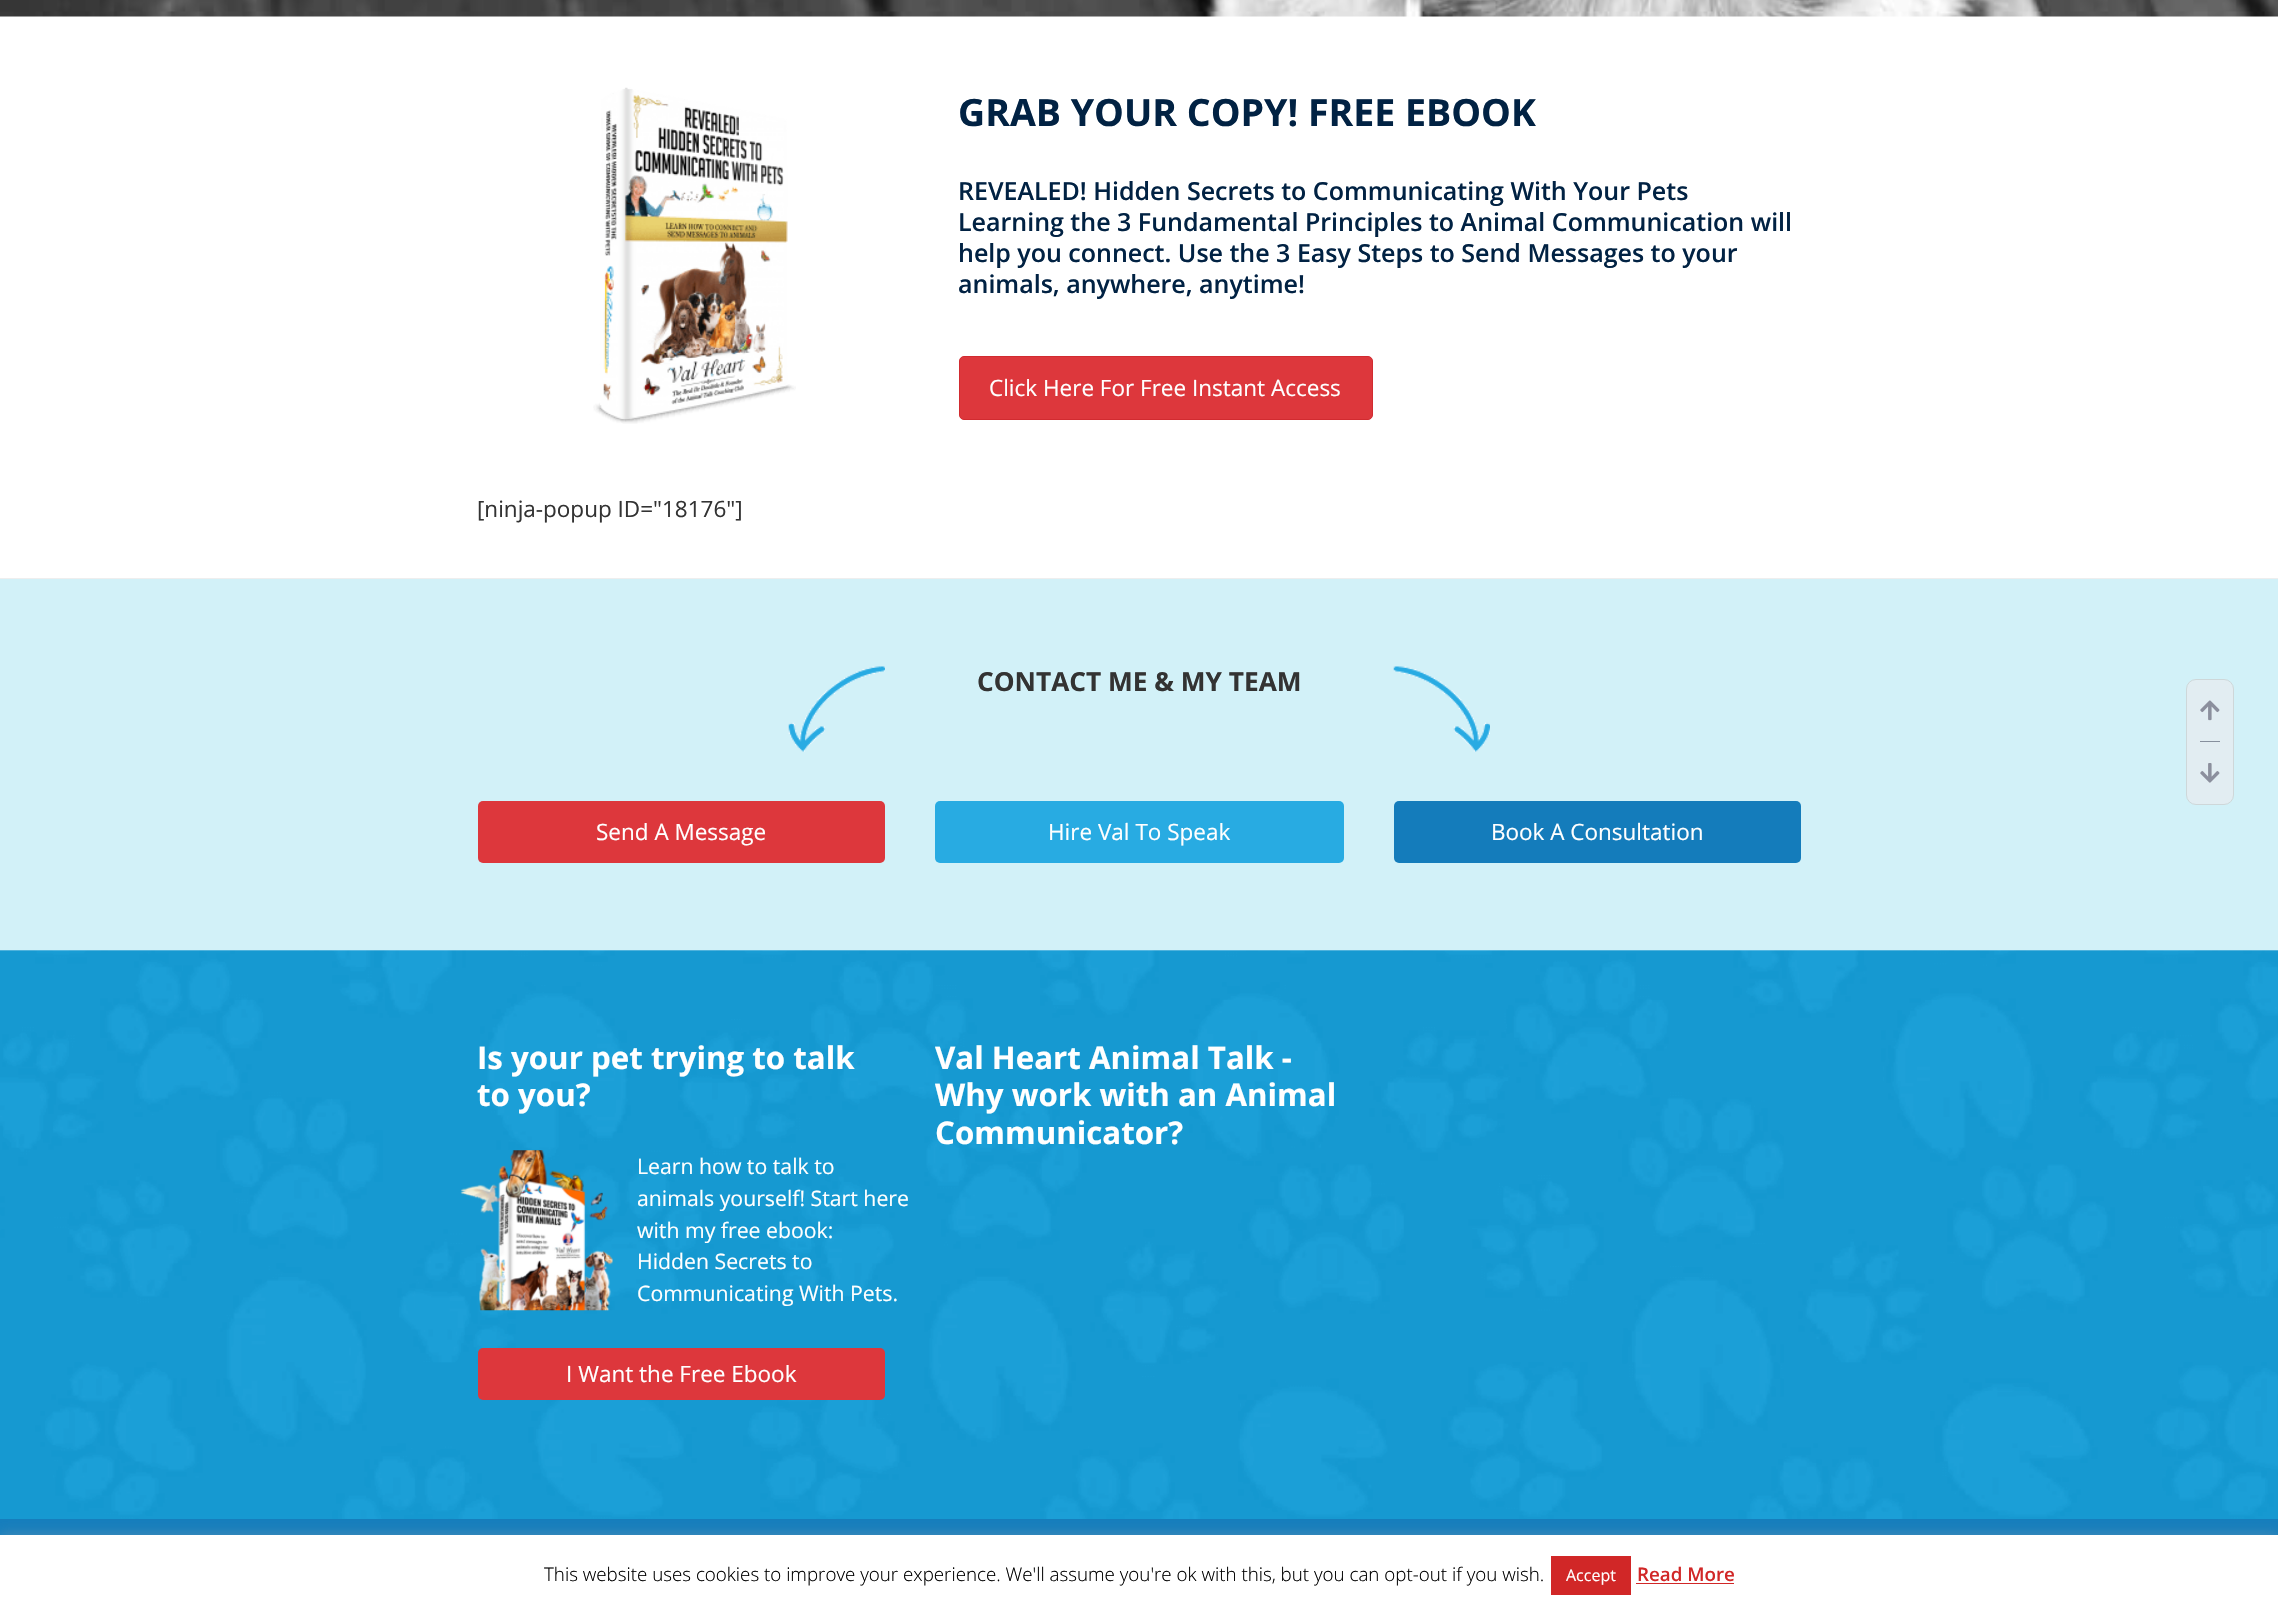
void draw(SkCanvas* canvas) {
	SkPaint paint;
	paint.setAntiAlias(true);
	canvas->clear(0xffffffff);
	canvas->drawImageRect(SkImages::DeferredFromEncodedData(SkData::MakeFromFileName("img1.png")), SkRect::MakeXYWH(0, 0, 2278, 17), SkSamplingOptions());
	canvas->drawImageRect(SkImages::DeferredFromEncodedData(SkData::MakeFromFileName("img2.png")), SkRect::MakeXYWH(593, 87, 203, 337), SkSamplingOptions());
	SkFont f1(fontMgr->matchFamilyStyle("Open Sans", SkFontStyle::Bold()), 37.5);
	f1.setSubpixel(true);
	paint.setColor(0xff012243);
	canvas->drawString("GRAB YOUR COPY! FREE EBOOK", 958, 126, f1, paint);
	SkFont f2(fontMgr->matchFamilyStyle("Open Sans", SkFontStyle(600, SkFontStyle::kNormal_Width, SkFontStyle::kUpright_Slant)), 25);
	f2.setSubpixel(true);
	canvas->drawString("REVEALED! Hidden Secrets to Communicating With Your Pets", 958, 200, f2, paint);
	canvas->drawString("Learning the 3 Fundamental Principles to Animal Communication will", 958, 231, f2, paint);
	canvas->drawString("help you connect. Use the 3 Easy Steps to Send Messages to your", 958, 262, f2, paint);
	canvas->drawString("animals, anywhere, anytime!", 958, 293, f2, paint);
	paint.setColor(0xffdd373c);
	canvas->drawRoundRect(SkRect::MakeXYWH(959.5, 356.5, 413, 63), 4.5, 4.5, paint);
	paint.setStroke(true);
	paint.setStrokeWidth(1);
	paint.setColor(0xffd12b30);
	canvas->drawRoundRect(SkRect::MakeXYWH(959.5, 356.5, 413, 63), 4.5, 4.5, paint);
	SkFont f3(fontMgr->matchFamilyStyle("Open Sans", SkFontStyle::Normal()), 22.5);
	f3.setSubpixel(true);
	paint.setStroke(false);
	paint.setColor(0xffffffff);
	canvas->drawString("Click Here For Free Instant Access", 989, 396, f3, paint);
	paint.setColor(0xff333333);
	canvas->drawString("[ninja-popup ID=\"18176\"]", 477, 517, f3, paint);
	paint.setColor(0xffeeeeee);
	canvas->drawRect(SkRect::MakeXYWH(0, 578, 2278, 1), paint);
	paint.setColor(0xffd2f1f8);
	canvas->drawRect(SkRect::MakeXYWH(0, 579, 2278, 371), paint);
	canvas->drawImageRect(SkImages::DeferredFromEncodedData(SkData::MakeFromFileName("img3.png")), SkRect::MakeXYWH(788, 666, 97, 86), SkSamplingOptions());
	SkFont f4(fontMgr->matchFamilyStyle("Open Sans", SkFontStyle::Bold()), 26.25);
	f4.setSubpixel(true);
	paint.setColor(0xff333333);
	canvas->drawString("CONTACT ME & MY TEAM", 977, 691, f4, paint);
	canvas->drawImageRect(SkImages::DeferredFromEncodedData(SkData::MakeFromFileName("img4.png")), SkRect::MakeXYWH(1393, 666, 97, 86), SkSamplingOptions());
	paint.setColor(0xffdd373c);
	canvas->drawRoundRect(SkRect::MakeXYWH(478, 801, 407, 62), 5, 5, paint);
	paint.setColor(0xffffffff);
	canvas->drawString("Send A Message", 596, 840, f3, paint);
	paint.setColor(0xff28abe2);
	canvas->drawRoundRect(SkRect::MakeXYWH(935, 801, 409, 62), 5, 5, paint);
	paint.setColor(0xffffffff);
	canvas->drawString("Hire Val To Speak", 1048, 840, f3, paint);
	paint.setColor(0xff147cbb);
	canvas->drawRoundRect(SkRect::MakeXYWH(1394, 801, 407, 62), 5, 5, paint);
	paint.setColor(0xffffffff);
	canvas->drawString("Book A Consultation", 1491, 840, f3, paint);
	canvas->drawImageRect(SkImages::DeferredFromEncodedData(SkData::MakeFromFileName("img5.png")), SkRect::MakeXYWH(0, 950, 2278, 569), SkSamplingOptions());
	SkFont f5(fontMgr->matchFamilyStyle("Open Sans", SkFontStyle::Bold()), 31.25);
	f5.setSubpixel(true);
	canvas->drawString("Is your pet trying to talk", 477, 1069, f5, paint);
	canvas->drawString("to you?", 477, 1106, f5, paint);
	canvas->drawImageRect(SkImages::DeferredFromEncodedData(SkData::MakeFromFileName("img6.png")), SkRect::MakeXYWH(460, 1150, 153, 161), SkSamplingOptions());
	SkFont f6(fontMgr->matchFamilyStyle("Open Sans", SkFontStyle::Normal()), 21.25);
	f6.setSubpixel(true);
	canvas->drawString("Learn how to talk to", 637, 1174, f6, paint);
	canvas->drawString("animals yourself! Start here", 637, 1206, f6, paint);
	canvas->drawString("with my free ebook:", 637, 1238, f6, paint);
	canvas->drawString("Hidden Secrets to", 637, 1269, f6, paint);
	canvas->drawString("Communicating With Pets.", 637, 1301, f6, paint);
	paint.setColor(0xffdd373c);
	canvas->drawRoundRect(SkRect::MakeXYWH(478, 1348, 407, 52), 5, 5, paint);
	paint.setColor(0xffffffff);
	canvas->drawString("I Want the Free Ebook", 566, 1382, f3, paint);
	canvas->drawString("Val Heart Animal Talk -", 935, 1069, f5, paint);
	canvas->drawString("Why work with an Animal", 935, 1106, f5, paint);
	canvas->drawString("Communicator?", 935, 1144, f5, paint);
	paint.setColor(0xff157dbc);
	canvas->drawRect(SkRect::MakeXYWH(0, 1519, 2278, 16), paint);
	paint.setColor(0xffe2edf2);
	canvas->drawRoundRect(SkRect::MakeXYWH(2186.5, 679.5, 47, 125), 9.5, 9.5, paint);
	paint.setStroke(true);
	paint.setColor(0xffced7d9);
	canvas->drawRoundRect(SkRect::MakeXYWH(2186.5, 679.5, 47, 125), 9.5, 9.5, paint);
	paint.setStroke(false);
	paint.setColor(0xff86909e);
	canvas->drawRect(SkRect::MakeXYWH(2200, 741, 20, 1), paint);
	canvas->drawImageRect(SkImages::DeferredFromEncodedData(SkData::MakeFromFileName("img7.png")), SkRect::MakeXYWH(2200, 700, 20, 21), SkSamplingOptions());
	canvas->drawImageRect(SkImages::DeferredFromEncodedData(SkData::MakeFromFileName("img8.png")), SkRect::MakeXYWH(2200, 763, 20, 20), SkSamplingOptions());
	paint.setColor(0x4dacabab);
	paint.setMaskFilter(SkMaskFilter::MakeBlur(kNormal_SkBlurStyle, 6));
	canvas->drawRect(SkRect::MakeXYWH(0, 1534, 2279, 75), paint);
	paint.setMaskFilter(nullptr);
	paint.setColor(0xffffffff);
	canvas->drawRect(SkRect::MakeXYWH(0, 1535, 2278, 75), paint);
	SkFont f7(fontMgr->matchFamilyStyle("Open Sans", SkFontStyle(300, SkFontStyle::kNormal_Width, SkFontStyle::kUpright_Slant)), 18.75);
	f7.setSubpixel(true);
	paint.setColor(0xff000000);
	canvas->drawString("This website uses cookies to improve your experience. We'll assume you're ok with this, but you can opt-out if you wish.", 544, 1581, f7, paint);
	paint.setColor(0xffd12727);
	canvas->drawRect(SkRect::MakeXYWH(1551, 1556, 80, 39), paint);
	SkFont f8(fontMgr->matchFamilyStyle("Open Sans", SkFontStyle::Normal()), 16);
	f8.setSubpixel(true);
	paint.setColor(0xffffffff);
	canvas->drawString("Accept", 1566, 1581, f8, paint);
	SkFont f9(fontMgr->matchFamilyStyle("Open Sans", SkFontStyle(600, SkFontStyle::kNormal_Width, SkFontStyle::kUpright_Slant)), 18.75);
	f9.setSubpixel(true);
	paint.setColor(0xffd12727);
	canvas->drawString("Read More", 1637, 1581, f9, paint);
	canvas->drawRect(SkRect::MakeXYWH(1636, 1583, 98, 1), paint);
}
